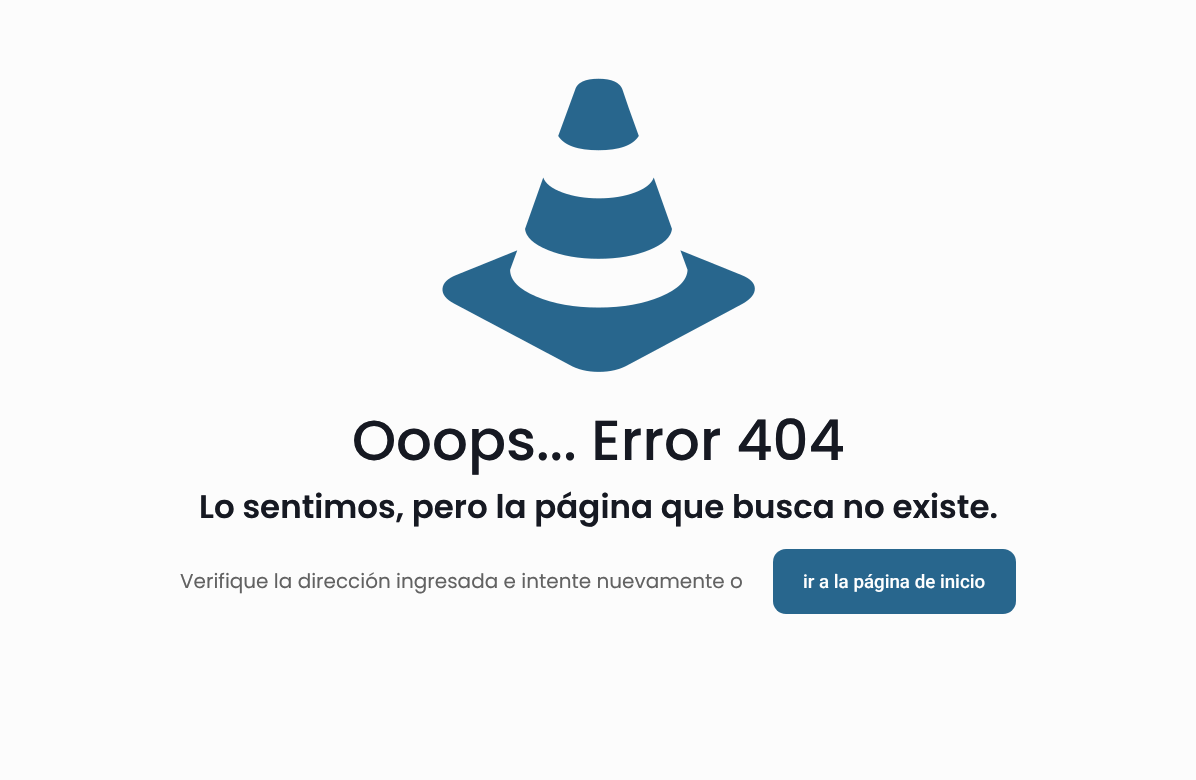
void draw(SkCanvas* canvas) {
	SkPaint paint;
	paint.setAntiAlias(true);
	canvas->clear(0xfffcfcfc);
	canvas->drawImageRect(SkImages::DeferredFromEncodedData(SkData::MakeFromFileName("img1.png")), SkRect::MakeXYWH(442, 78, 313, 294), SkSamplingOptions());
	SkFont f1(fontMgr->matchFamilyStyle("Poppins", SkFontStyle(500, SkFontStyle::kNormal_Width, SkFontStyle::kUpright_Slant)), 56.25);
	f1.setSubpixel(true);
	paint.setColor(0xff161922);
	canvas->drawString("Ooops... Error 404", 352, 460, f1, paint);
	SkFont f2(fontMgr->matchFamilyStyle("Poppins", SkFontStyle(600, SkFontStyle::kNormal_Width, SkFontStyle::kUpright_Slant)), 32.5);
	f2.setSubpixel(true);
	canvas->drawString("Lo sentimos, pero la página que busca no existe.", 199, 518, f2, paint);
	SkFont f3(fontMgr->matchFamilyStyle("Poppins", SkFontStyle::Normal()), 20);
	f3.setSubpixel(true);
	paint.setColor(0xff626262);
	canvas->drawString("Verifique la dirección ingresada e intente nuevamente o", 180, 588, f3, paint);
	paint.setColor(0xff28668d);
	canvas->drawRoundRect(SkRect::MakeXYWH(773, 549, 243, 65), 13, 13, paint);
	SkFont f4(fontMgr->matchFamilyStyle("Roboto", SkFontStyle(500, SkFontStyle::kNormal_Width, SkFontStyle::kUpright_Slant)), 18.75);
	f4.setSubpixel(true);
	paint.setColor(0xffffffff);
	canvas->drawString("ir a la página de inicio", 803, 588, f4, paint);
}
